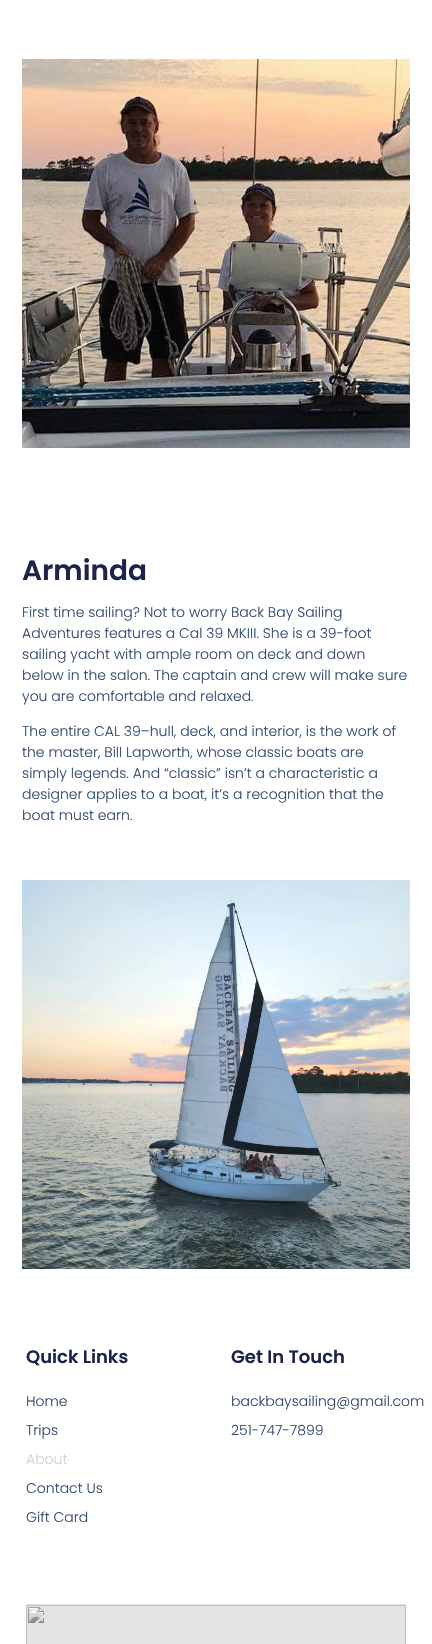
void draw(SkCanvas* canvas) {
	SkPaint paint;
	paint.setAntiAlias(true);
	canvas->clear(0xffffffff);
	canvas->drawImageRect(SkImages::DeferredFromEncodedData(SkData::MakeFromFileName("img1.png")), SkRect::MakeXYWH(22, 59, 388, 389), SkSamplingOptions());
	SkFont f1(fontMgr->matchFamilyStyle("Poppins", SkFontStyle(600, SkFontStyle::kNormal_Width, SkFontStyle::kUpright_Slant)), 28);
	f1.setSubpixel(true);
	paint.setColor(0xff1c244b);
	canvas->drawString("Arminda", 22, 580, f1, paint);
	SkFont f2(fontMgr->matchFamilyStyle("Poppins", SkFontStyle(300, SkFontStyle::kNormal_Width, SkFontStyle::kUpright_Slant)), 14);
	f2.setSubpixel(true);
	paint.setColor(0xff324a6d);
	canvas->drawString("First time sailing? Not to worry Back Bay Sailing", 22, 617, f2, paint);
	canvas->drawString("Adventures features a Cal 39 MKIII. She is a 39-foot", 22, 638, f2, paint);
	canvas->drawString("sailing yacht with ample room on deck and down", 22, 659, f2, paint);
	canvas->drawString("below in the salon. The captain and crew will make sure", 22, 680, f2, paint);
	canvas->drawString("you are comfortable and relaxed.", 22, 701, f2, paint);
	canvas->drawString("The entire CAL 39–hull, deck, and interior, is the work of", 22, 736, f2, paint);
	canvas->drawString("the master, Bill Lapworth, whose classic boats are", 22, 757, f2, paint);
	canvas->drawString("simply legends. And “classic” isn’t a characteristic a", 22, 778, f2, paint);
	canvas->drawString("designer applies to a boat, it’s a recognition that the", 22, 799, f2, paint);
	canvas->drawString("boat must earn.", 22, 820, f2, paint);
	canvas->drawImageRect(SkImages::DeferredFromEncodedData(SkData::MakeFromFileName("img2.png")), SkRect::MakeXYWH(22, 880, 388, 389), SkSamplingOptions());
	SkFont f3(fontMgr->matchFamilyStyle("Poppins", SkFontStyle(600, SkFontStyle::kNormal_Width, SkFontStyle::kUpright_Slant)), 18);
	f3.setSubpixel(true);
	paint.setColor(0xff1c244b);
	canvas->drawString("Quick Links", 26, 1363, f3, paint);
	paint.setColor(0xff324a6d);
	canvas->drawString("Home", 26, 1406, f2, paint);
	canvas->drawString("Trips", 26, 1435, f2, paint);
	paint.setColor(0xffc8d5dc);
	canvas->drawString("About", 26, 1464, f2, paint);
	paint.setColor(0xff324a6d);
	canvas->drawString("Contact Us", 26, 1493, f2, paint);
	canvas->drawString("Gift Card", 26, 1522, f2, paint);
	paint.setColor(0xff1c244b);
	canvas->drawString("Get In Touch", 231, 1363, f3, paint);
	paint.setColor(0xff324a6d);
	canvas->drawString("backbaysailing@gmail.com", 231, 1406, f2, paint);
	canvas->drawString("251-747-7899", 231, 1435, f2, paint);
	canvas->drawImageRect(SkImages::DeferredFromEncodedData(SkData::MakeFromFileName("img3.png")), SkRect::MakeXYWH(26, 1604, 380, 40), SkSamplingOptions());
}
